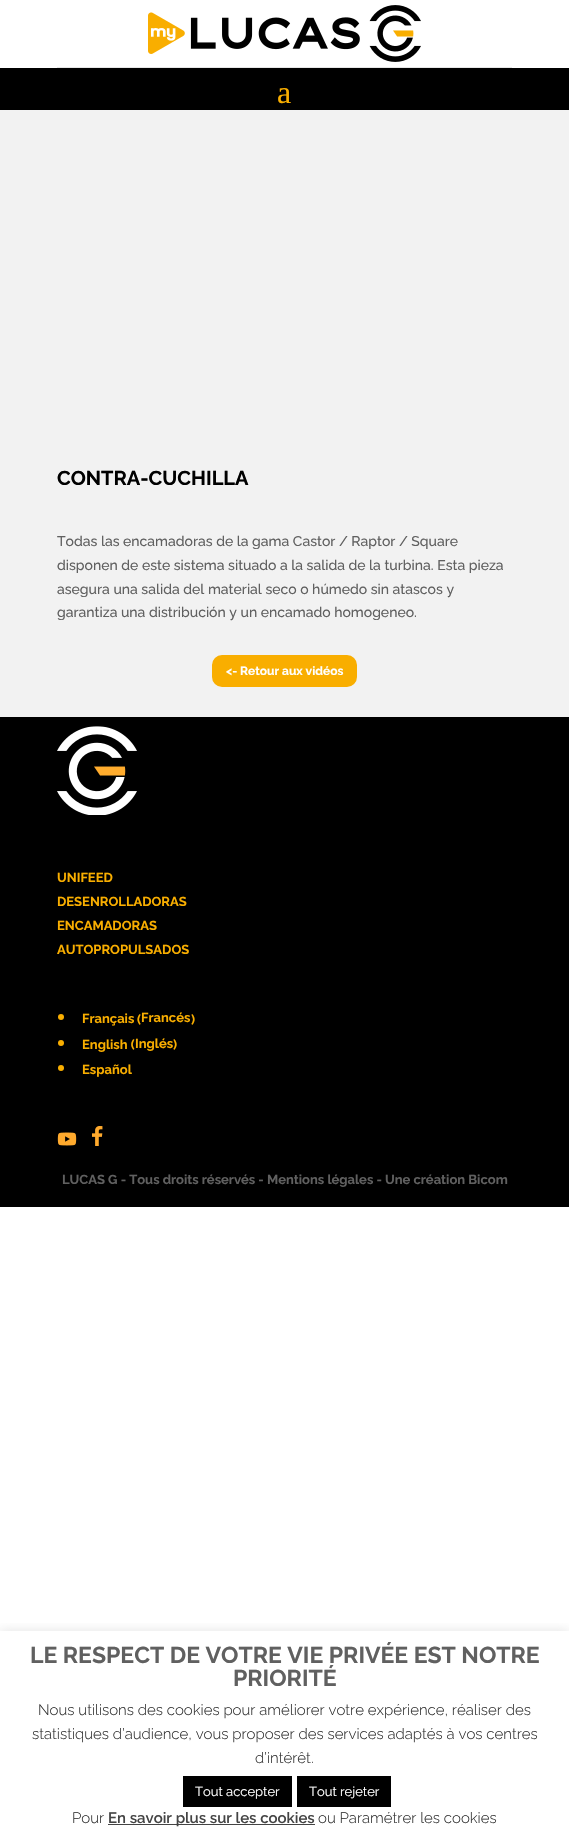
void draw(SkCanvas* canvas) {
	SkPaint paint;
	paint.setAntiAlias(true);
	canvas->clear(0xffffffff);
	paint.setColor(0xffe6e6e6);
	canvas->drawRect(SkRect::MakeXYWH(57, 67, 455, 1), paint);
	canvas->drawImageRect(SkImages::DeferredFromEncodedData(SkData::MakeFromFileName("img1.png")), SkRect::MakeXYWH(148, 5, 273, 57), SkSamplingOptions());
	paint.setColor(0xff000000);
	canvas->drawRect(SkRect::MakeXYWH(0, 68, 569, 42), paint);
	SkFont f1(fontMgr->matchFamilyStyle("Liberation Serif", SkFontStyle::Normal()), 32);
	f1.setSubpixel(true);
	paint.setColor(0xfff9ae00);
	canvas->drawString("a", 277, 103, f1, paint);
	paint.setColor(0xfff2f2f2);
	canvas->drawRect(SkRect::MakeXYWH(0, 110, 569, 607), paint);
	SkFont f2(fontMgr->matchFamilyStyle("Raleway", SkFontStyle::Bold()), 20);
	f2.setSubpixel(true);
	paint.setColor(0xff000000);
	canvas->drawString("CONTRA-CUCHILLA", 57, 485, f2, paint);
	SkFont f3(fontMgr->matchFamilyStyle("Raleway", SkFontStyle(500, SkFontStyle::kNormal_Width, SkFontStyle::kUpright_Slant)), 14);
	f3.setSubpixel(true);
	paint.setColor(0xff606060);
	canvas->drawString("Todas las encamadoras de la gama Castor / Raptor / Square", 57, 546, f3, paint);
	canvas->drawString("disponen de este sistema situado a la salida de la turbina. Esta pieza", 57, 570, f3, paint);
	canvas->drawString("asegura una salida del material seco o húmedo sin atascos y", 57, 594, f3, paint);
	canvas->drawString("garantiza una distribución y un encamado homogeneo.", 57, 617, f3, paint);
	paint.setColor(0xfff9ae00);
	canvas->drawRoundRect(SkRect::MakeXYWH(213, 656, 143, 30), 9, 9, paint);
	paint.setStroke(true);
	paint.setStrokeWidth(2);
	canvas->drawRoundRect(SkRect::MakeXYWH(213, 656, 143, 30), 9, 9, paint);
	SkFont f4(fontMgr->matchFamilyStyle("Raleway", SkFontStyle::Bold()), 12);
	f4.setSubpixel(true);
	paint.setStroke(false);
	paint.setColor(0xffffffff);
	canvas->drawString("<- Retour aux vidéos", 226, 675, f4, paint);
	paint.setColor(0xff000000);
	canvas->drawRect(SkRect::MakeXYWH(0, 717, 569, 490), paint);
	canvas->drawImageRect(SkImages::DeferredFromEncodedData(SkData::MakeFromFileName("img2.png")), SkRect::MakeXYWH(57, 726, 80, 89), SkSamplingOptions());
	SkFont f5(fontMgr->matchFamilyStyle("Raleway", SkFontStyle::Bold()), 13);
	f5.setSubpixel(true);
	paint.setColor(0xfff9ae00);
	canvas->drawString("UNIFEED", 57, 882, f5, paint);
	canvas->drawString("DESENROLLADORAS", 57, 906, f5, paint);
	canvas->drawString("ENCAMADORAS", 57, 930, f5, paint);
	canvas->drawString("AUTOPROPULSADOS", 57, 954, f5, paint);
	canvas->drawCircle(61, 1017, 3, paint);
	canvas->drawString("Français", 82, 1023, f5, paint);
	canvas->drawString("(", 137, 1024, f5, paint);
	canvas->drawString("Francés", 141, 1022, f5, paint);
	canvas->drawString(")", 191, 1024, f5, paint);
	canvas->drawCircle(61, 1043, 3, paint);
	canvas->drawString("English (", 82, 1049, f5, paint);
	canvas->drawString("Inglés", 135, 1048, f5, paint);
	canvas->drawString(")", 173, 1049, f5, paint);
	canvas->drawCircle(61, 1068, 3, paint);
	canvas->drawString("Español", 82, 1074, f5, paint);
	canvas->drawImageRect(SkImages::DeferredFromEncodedData(SkData::MakeFromFileName("img3.png")), SkRect::MakeXYWH(57, 1132, 20, 14), SkSamplingOptions());
	canvas->drawImageRect(SkImages::DeferredFromEncodedData(SkData::MakeFromFileName("img4.png")), SkRect::MakeXYWH(92, 1126, 11, 20), SkSamplingOptions());
	paint.setColor(0xff606060);
	canvas->drawString("LUCAS G - Tous droits réservés - Mentions légales - Une création Bicom", 62, 1184, f5, paint);
	canvas->save();
	canvas->clipRect(SkRect::MakeXYWH(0, 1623, 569, 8));
	paint.setColor(0x4dacabab);
	paint.setMaskFilter(SkMaskFilter::MakeBlur(kNormal_SkBlurStyle, 5));
	canvas->drawRect(SkRect::MakeXYWH(0, 1630, 569, 212), paint);
	paint.setMaskFilter(nullptr);
	canvas->restore();
	SkFont f6(fontMgr->matchFamilyStyle("Raleway", SkFontStyle::Bold()), 23);
	f6.setSubpixel(true);
	paint.setColor(0xff606060);
	canvas->drawString("LE RESPECT DE VOTRE VIE PRIVÉE EST NOTRE", 30, 1663, f6, paint);
	canvas->drawString("PRIORITÉ", 233, 1686, f6, paint);
	SkFont f7(fontMgr->matchFamilyStyle("Raleway", SkFontStyle(300, SkFontStyle::kNormal_Width, SkFontStyle::kUpright_Slant)), 15);
	f7.setSubpixel(true);
	paint.setColor(0xff333333);
	canvas->drawString("Nous utilisons des cookies pour améliorer votre expérience, réaliser des", 38, 1715, f7, paint);
	canvas->drawString("statistiques d’audience, vous proposer des services adaptés à vos centres", 32, 1739, f7, paint);
	canvas->drawString("d’intérêt.", 255, 1763, f7, paint);
	paint.setColor(0xff000000);
	canvas->drawRect(SkRect::MakeXYWH(183, 1776, 109, 31), paint);
	SkFont f8(fontMgr->matchFamilyStyle("Raleway", SkFontStyle::Normal()), 13);
	f8.setSubpixel(true);
	paint.setColor(0xffffffff);
	canvas->drawString("Tout accepter", 195, 1796, f8, paint);
	paint.setColor(0xff000000);
	canvas->drawRect(SkRect::MakeXYWH(297, 1776, 94, 31), paint);
	paint.setColor(0xffffffff);
	canvas->drawString("Tout rejeter", 309, 1796, f8, paint);
	paint.setColor(0xff333333);
	canvas->drawString("Pour", 72, 1823, f7, paint);
	paint.setColor(0xff444444);
	canvas->drawRect(SkRect::MakeXYWH(108, 1824, 207, 1), paint);
	SkFont f9(fontMgr->matchFamilyStyle("Raleway", SkFontStyle(600, SkFontStyle::kNormal_Width, SkFontStyle::kUpright_Slant)), 15);
	f9.setSubpixel(true);
	canvas->drawString("En savoir plus sur les cookies", 108, 1823, f9, paint);
	paint.setColor(0xff333333);
	canvas->drawString("ou Paramétrer les cookies", 318, 1823, f7, paint);
}
